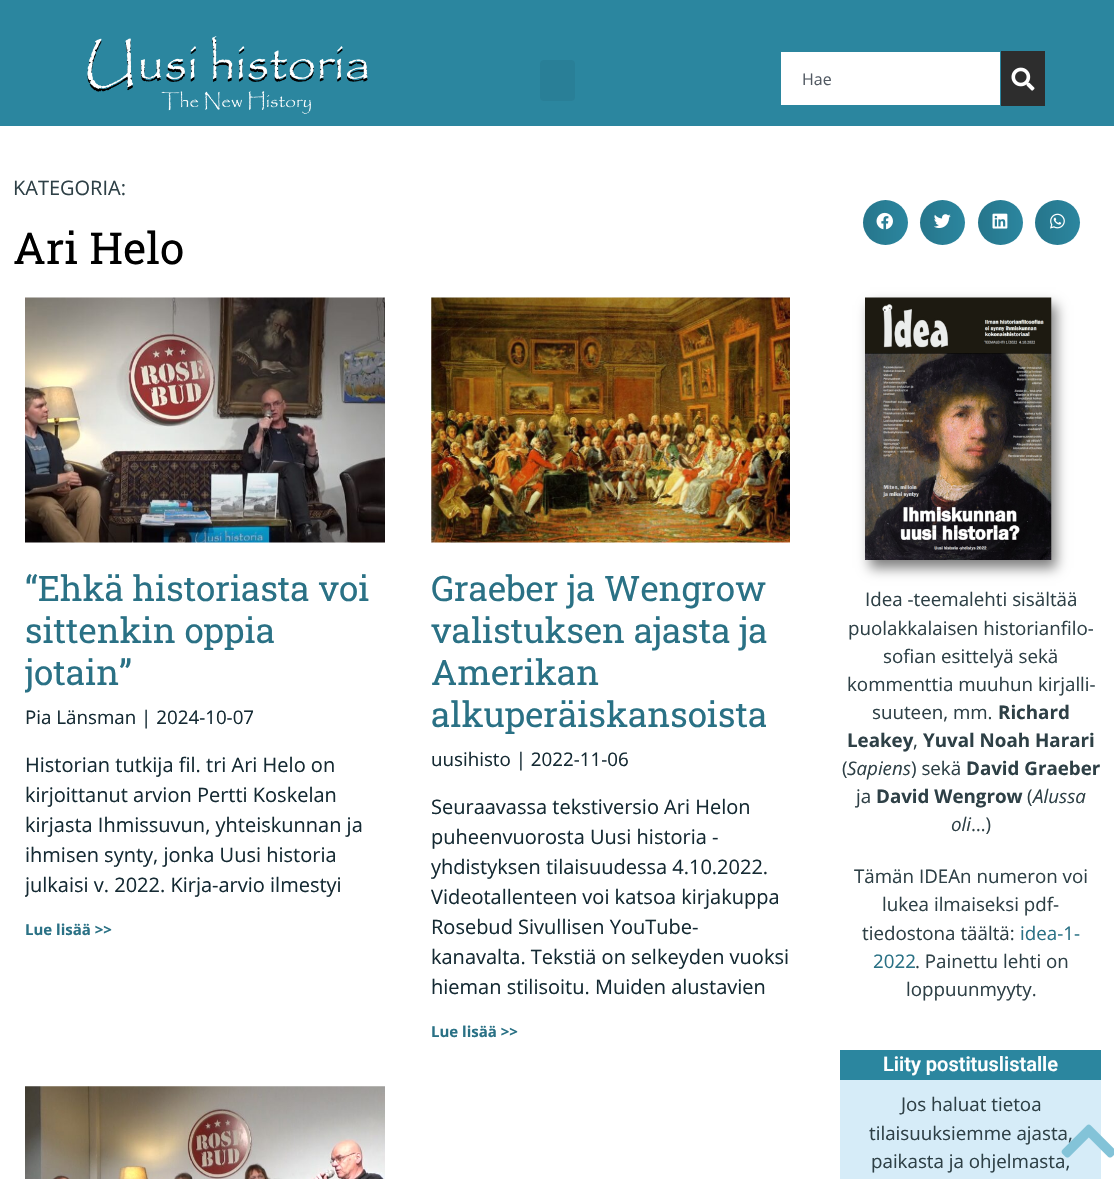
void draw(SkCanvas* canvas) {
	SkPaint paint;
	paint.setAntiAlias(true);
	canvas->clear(0xffffffff);
	paint.setColor(0xff2b869f);
	canvas->drawRect(SkRect::MakeXYWH(0, 0, 1114, 126), paint);
	canvas->drawImageRect(SkImages::DeferredFromEncodedData(SkData::MakeFromFileName("img1.png")), SkRect::MakeXYWH(87, 36, 281, 78), SkSamplingOptions());
	paint.setColor(0xff297f97);
	canvas->drawRoundRect(SkRect::MakeXYWH(540, 60, 35, 41), 4, 4, paint);
	paint.setColor(0xffffffff);
	canvas->drawRect(SkRect::MakeXYWH(781, 52, 219, 53), paint);
	SkFont f1(fontMgr->matchFamilyStyle("Open Sans", SkFontStyle::Normal()), 16);
	f1.setSubpixel(true);
	paint.setColor(0xff515962);
	canvas->drawString("Hae", 802, 85, f1, paint);
	paint.setColor(0xff2d2d2d);
	canvas->drawRect(SkRect::MakeXYWH(1001, 51, 44, 55), paint);
	canvas->drawImageRect(SkImages::DeferredFromEncodedData(SkData::MakeFromFileName("img2.png")), SkRect::MakeXYWH(1011, 67, 24, 24), SkSamplingOptions());
	SkFont f2(fontMgr->matchFamilyStyle("Open Sans", SkFontStyle::Normal()), 20);
	f2.setSubpixel(true);
	paint.setColor(0xff2e4046);
	canvas->drawString("KATEGORIA:", 13, 195, f2, paint);
	SkFont f3(fontMgr->matchFamilyStyle("Roboto Slab", SkFontStyle::Normal()), 44);
	f3.setSubpixel(true);
	paint.setColor(0xff000000);
	canvas->drawString("Ari Helo", 13, 264, f3, paint);
	paint.setColor(0xff2b869f);
	canvas->drawCircle(885.5, 222.5, 22.5, paint);
	{
		const SkColor colors[] = {0x1f000000, 0x00000000};
		const float stops[] = {0, 1};
		const SkPoint ends[] = {{863, 223}, {908, 223}};
		paint.setShader(SkGradientShader::MakeLinear(ends, colors, stops, 2, SkTileMode::kClamp));
		paint.setAlpha(255);
	}
	canvas->drawCircle(885.5, 222.5, 22.5, paint);
	canvas->drawImageRect(SkImages::DeferredFromEncodedData(SkData::MakeFromFileName("img3.png")), SkRect::MakeXYWH(876, 212, 17, 18), SkSamplingOptions());
	paint.setShader(nullptr);
	paint.setColor(0xff2b869f);
	canvas->drawCircle(942.5, 222.5, 22.5, paint);
	{
		const SkColor colors[] = {0x1f000000, 0x00000000};
		const float stops[] = {0, 1};
		const SkPoint ends[] = {{920, 223}, {965, 223}};
		paint.setShader(SkGradientShader::MakeLinear(ends, colors, stops, 2, SkTileMode::kClamp));
		paint.setAlpha(255);
	}
	canvas->drawCircle(942.5, 222.5, 22.5, paint);
	canvas->drawImageRect(SkImages::DeferredFromEncodedData(SkData::MakeFromFileName("img4.png")), SkRect::MakeXYWH(934, 214, 17, 14), SkSamplingOptions());
	paint.setShader(nullptr);
	paint.setColor(0xff2b869f);
	canvas->drawCircle(1000.5, 222.5, 22.5, paint);
	{
		const SkColor colors[] = {0x1f000000, 0x00000000};
		const float stops[] = {0, 1};
		const SkPoint ends[] = {{978, 223}, {1023, 223}};
		paint.setShader(SkGradientShader::MakeLinear(ends, colors, stops, 2, SkTileMode::kClamp));
		paint.setAlpha(255);
	}
	canvas->drawCircle(1000.5, 222.5, 22.5, paint);
	canvas->drawImageRect(SkImages::DeferredFromEncodedData(SkData::MakeFromFileName("img5.png")), SkRect::MakeXYWH(992, 213, 16, 16), SkSamplingOptions());
	paint.setShader(nullptr);
	paint.setColor(0xff2b869f);
	canvas->drawCircle(1057.5, 222.5, 22.5, paint);
	{
		const SkColor colors[] = {0x1f000000, 0x00000000};
		const float stops[] = {0, 1};
		const SkPoint ends[] = {{1035, 223}, {1080, 223}};
		paint.setShader(SkGradientShader::MakeLinear(ends, colors, stops, 2, SkTileMode::kClamp));
		paint.setAlpha(255);
	}
	canvas->drawCircle(1057.5, 222.5, 22.5, paint);
	canvas->drawImageRect(SkImages::DeferredFromEncodedData(SkData::MakeFromFileName("img6.png")), SkRect::MakeXYWH(1050, 213, 15, 16), SkSamplingOptions());
	canvas->drawImageRect(SkImages::DeferredFromEncodedData(SkData::MakeFromFileName("img7.png")), SkRect::MakeXYWH(25, 297, 360, 246), SkSamplingOptions());
	SkFont f4(fontMgr->matchFamilyStyle("Roboto Slab", SkFontStyle::Normal()), 35);
	f4.setSubpixel(true);
	paint.setShader(nullptr);
	paint.setColor(0xff2a7185);
	canvas->drawString("“Ehkä historiasta voi", 25, 601, f4, paint);
	canvas->drawString("sittenkin oppia", 25, 643, f4, paint);
	canvas->save();
	canvas->clipRect(SkRect::MakeXYWH(25, 298, 360, 748));
	canvas->drawString("jotain”", 25, 685, f4, paint);
	canvas->restore();
	SkFont f5(fontMgr->matchFamilyStyle("Open Sans", SkFontStyle::Normal()), 18.75);
	f5.setSubpixel(true);
	paint.setColor(0xff152a33);
	canvas->drawString("Pia Länsman | 2024-10-07", 25, 724, f5, paint);
	canvas->drawString("Historian tutkija fil. tri Ari Helo on", 25, 772, f2, paint);
	canvas->drawString("kirjoittanut arvion Pertti Koskelan", 25, 802, f2, paint);
	canvas->drawString("kirjasta Ihmissuvun, yhteiskunnan ja", 25, 832, f2, paint);
	canvas->drawString("ihmisen synty, jonka Uusi historia", 25, 862, f2, paint);
	canvas->save();
	canvas->clipRect(SkRect::MakeXYWH(25, 298, 360, 748));
	canvas->drawString("julkaisi v. 2022. Kirja-arvio ilmestyi", 25, 892, f2, paint);
	canvas->restore();
	SkFont f6(fontMgr->matchFamilyStyle("Open Sans", SkFontStyle::Bold()), 15);
	f6.setSubpixel(true);
	paint.setColor(0xff2a7185);
	canvas->drawString("Lue lisää >>", 25, 935, f6, paint);
	canvas->drawImageRect(SkImages::DeferredFromEncodedData(SkData::MakeFromFileName("img8.png")), SkRect::MakeXYWH(431, 297, 359, 246), SkSamplingOptions());
	canvas->drawString("Graeber ja Wengrow", 431, 601, f4, paint);
	canvas->drawString("valistuksen ajasta ja", 431, 643, f4, paint);
	canvas->drawString("Amerikan", 431, 685, f4, paint);
	canvas->drawString("alkuperäiskansoista", 431, 727, f4, paint);
	paint.setColor(0xff152a33);
	canvas->drawString("uusihisto | 2022-11-06", 431, 766, f5, paint);
	canvas->drawString("Seuraavassa tekstiversio Ari Helon", 431, 814, f2, paint);
	canvas->drawString("puheenvuorosta Uusi historia -", 431, 844, f2, paint);
	canvas->drawString("yhdistyksen tilaisuudessa 4.10.2022.", 431, 874, f2, paint);
	canvas->drawString("Videotallenteen voi katsoa kirjakuppa", 431, 904, f2, paint);
	canvas->drawString("Rosebud Sivullisen YouTube-", 431, 934, f2, paint);
	canvas->drawString("kanavalta. Tekstiä on selkeyden vuoksi", 431, 964, f2, paint);
	canvas->drawString("hieman stilisoitu. Muiden alustavien", 431, 994, f2, paint);
	paint.setColor(0xff2a7185);
	canvas->drawString("Lue lisää >>", 431, 1037, f6, paint);
	canvas->drawImageRect(SkImages::DeferredFromEncodedData(SkData::MakeFromFileName("img9.png")), SkRect::MakeXYWH(25, 1086, 360, 93), SkSamplingOptions());
	paint.setColor(0x80000000);
	paint.setMaskFilter(SkMaskFilter::MakeBlur(kNormal_SkBlurStyle, 6));
	canvas->drawRect(SkRect::MakeXYWH(870, 305, 186, 263), paint);
	paint.setMaskFilter(nullptr);
	canvas->drawImageRect(SkImages::DeferredFromEncodedData(SkData::MakeFromFileName("img10.png")), SkRect::MakeXYWH(865, 297, 187, 263), SkSamplingOptions());
	paint.setColor(0xff2e4046);
	canvas->drawString("Idea -teemalehti sisältää", 865, 606, f5, paint);
	canvas->drawString("puolakkalaisen historianfilo-", 848, 635, f5, paint);
	canvas->drawString("sofian esittelyä sekä", 883, 663, f5, paint);
	canvas->drawString("kommenttia muuhun kirjalli-", 847, 691, f5, paint);
	canvas->drawString("suuteen, mm.", 872, 719, f5, paint);
	SkFont f7(fontMgr->matchFamilyStyle("Open Sans", SkFontStyle::Bold()), 18.75);
	f7.setSubpixel(true);
	canvas->drawString("Richard", 998, 719, f7, paint);
	canvas->drawString("Leakey", 847, 747, f7, paint);
	canvas->drawString(",", 913, 747, f5, paint);
	canvas->drawString("Yuval Noah Harari", 923, 747, f7, paint);
	canvas->drawString("(", 842, 775, f5, paint);
	SkFont f8(fontMgr->matchFamilyStyle("Open Sans", SkFontStyle::Italic()), 18.75);
	f8.setSubpixel(true);
	canvas->drawString("Sapiens", 847, 775, f8, paint);
	canvas->drawString(") sekä", 911, 775, f5, paint);
	canvas->drawString("David Graeber", 966, 775, f7, paint);
	canvas->drawString("ja", 856, 803, f5, paint);
	canvas->drawString("David Wengrow", 876, 803, f7, paint);
	canvas->drawString("(", 1027, 803, f5, paint);
	canvas->drawString("Alussa", 1033, 803, f8, paint);
	canvas->drawString("oli", 951, 831, f8, paint);
	canvas->drawString("…)", 971, 831, f5, paint);
	canvas->drawString("Tämän IDEAn numeron voi", 854, 883, f5, paint);
	canvas->drawString("lukea ilmaiseksi pdf-", 882, 911, f5, paint);
	canvas->drawString("tiedostona täältä:", 862, 940, f5, paint);
	paint.setColor(0xff2a7185);
	canvas->drawString("idea-1-", 1020, 940, f5, paint);
	canvas->drawString("2022", 873, 968, f5, paint);
	paint.setColor(0xff2e4046);
	canvas->drawString(". Painettu lehti on", 915, 968, f5, paint);
	canvas->drawString("loppuunmyyty.", 906, 996, f5, paint);
	paint.setColor(0xff2b869f);
	canvas->drawRect(SkRect::MakeXYWH(840, 1050, 261, 30), paint);
	SkFont f9(fontMgr->matchFamilyStyle("Roboto", SkFontStyle(600, SkFontStyle::kNormal_Width, SkFontStyle::kUpright_Slant)), 20);
	f9.setSubpixel(true);
	paint.setColor(0xffffffff);
	canvas->drawString("Liity postituslistalle", 883, 1071, f9, paint);
	paint.setColor(0xffd6ecf8);
	canvas->drawRect(SkRect::MakeXYWH(840, 1080, 261, 99), paint);
	paint.setColor(0xff2e4046);
	canvas->drawString("Jos haluat tietoa", 901, 1111, f5, paint);
	canvas->drawString("tilaisuuksiemme ajasta,", 869, 1140, f5, paint);
	canvas->drawString("paikasta ja ohjelmasta,", 871, 1168, f5, paint);
	canvas->drawImageRect(SkImages::DeferredFromEncodedData(SkData::MakeFromFileName("img11.png")), SkRect::MakeXYWH(1061, 1124, 53, 34), SkSamplingOptions());
}
